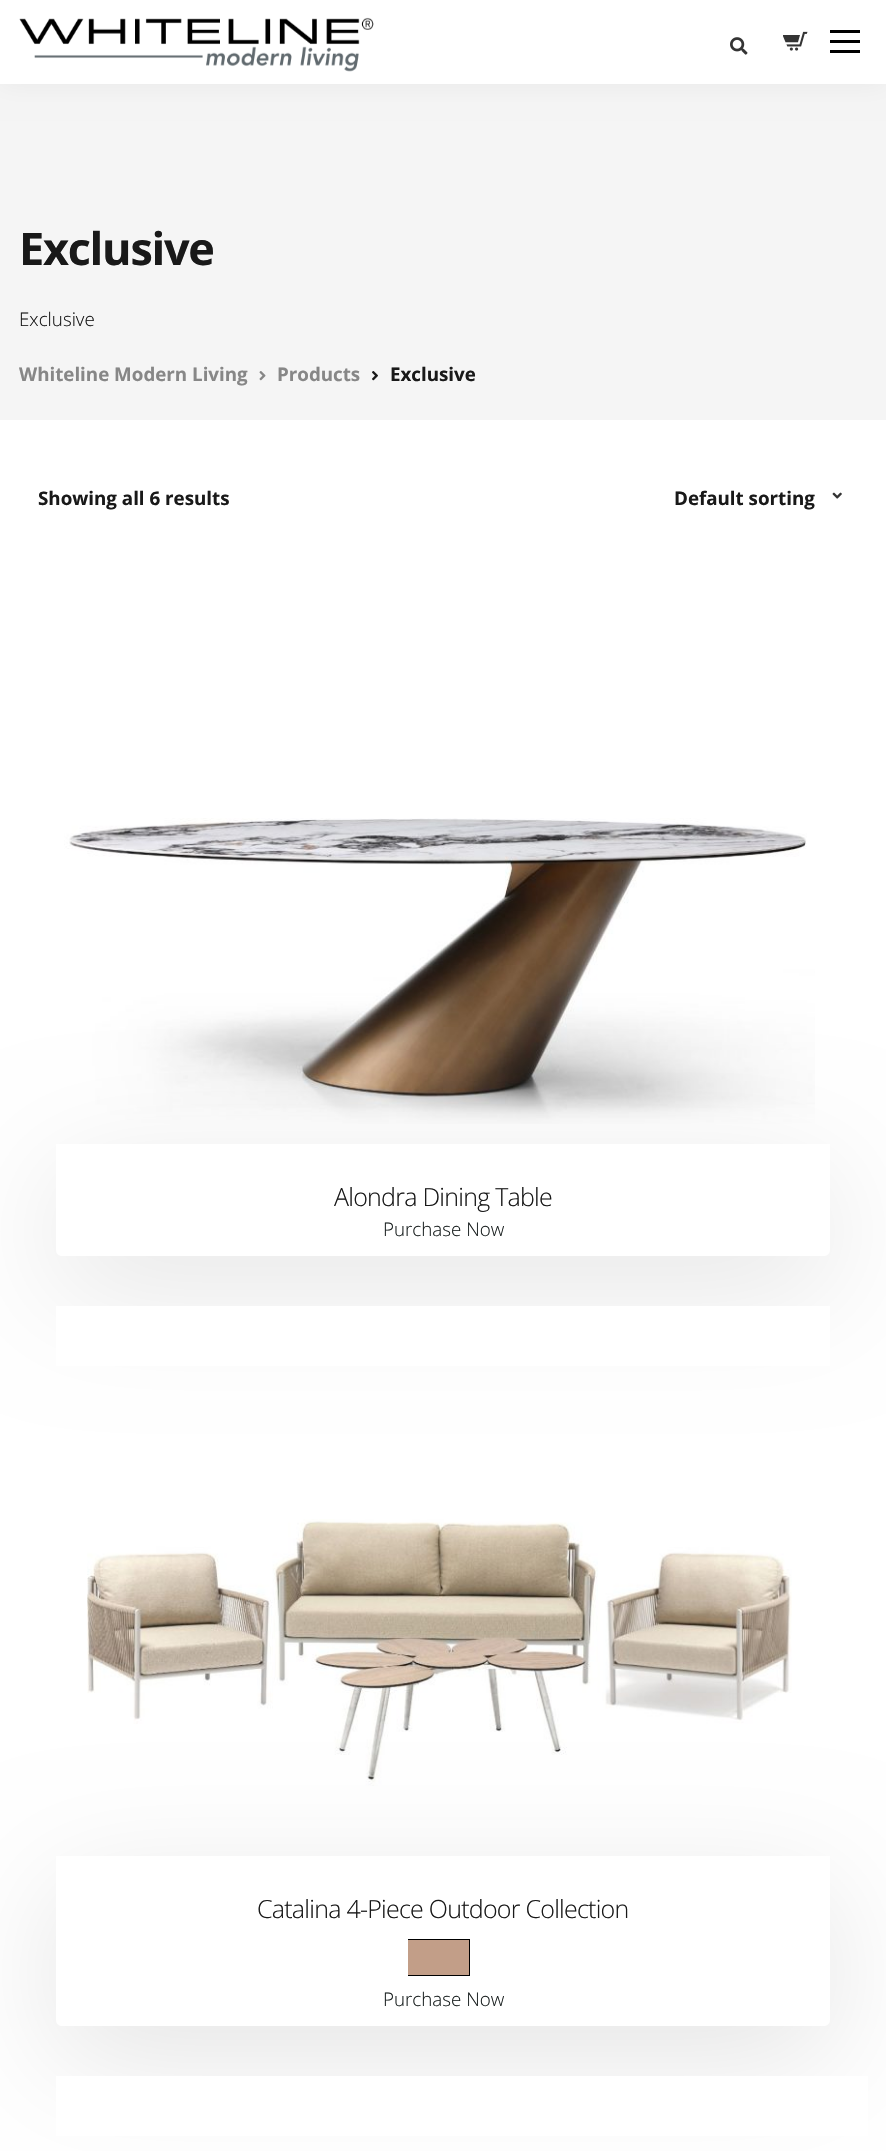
void draw(SkCanvas* canvas) {
	SkPaint paint;
	paint.setAntiAlias(true);
	auto spacedText = [&](const char* s, float x, float y, const SkFont& font, const SkPaint& ink, float letter, float word) {
		std::vector<SkGlyphID> glyphs(font.countText(s, strlen(s), SkTextEncoding::kUTF8));
		std::vector<float> xs(glyphs.size());
		font.textToGlyphs(s, strlen(s), SkTextEncoding::kUTF8, glyphs);
		font.getXPos(glyphs, xs, x);
		float extra = 0;
		for (size_t i = 0; i < glyphs.size(); i++) {
			xs[i] += extra;
			extra += letter + word * (glyphs[i] == font.unicharToGlyph(' '));
		}
		canvas->drawTextBlob(SkTextBlob::MakeFromPosHGlyphs(glyphs, xs, y, font), 0, 0, ink);
	};
	auto svgPath = [&](const char* data, bool evenOdd = false) {
		SkPath result = *SkParsePath::FromSVGString(data);
		if (evenOdd) result.setFillType(SkPathFillType::kEvenOdd);
		return result;
	};
	canvas->clear(0xffffffff);
	paint.setColor(0xfff5f5f5);
	canvas->drawRect(SkRect::MakeXYWH(0, 84, 886, 336), paint);
	paint.setColor(0x0d000000);
	paint.setMaskFilter(SkMaskFilter::MakeBlur(kNormal_SkBlurStyle, 12.5));
	canvas->drawRect(SkRect::MakeXYWH(0, 0, 886, 84), paint);
	paint.setMaskFilter(nullptr);
	paint.setColor(0xffffffff);
	canvas->drawRect(SkRect::MakeXYWH(0, 0, 886, 84), paint);
	canvas->drawImageRect(SkImages::DeferredFromEncodedData(SkData::MakeFromFileName("img1.png")), SkRect::MakeXYWH(19, 17, 355, 55), SkSamplingOptions());
	canvas->drawImageRect(SkImages::DeferredFromEncodedData(SkData::MakeFromFileName("img2.png")), SkRect::MakeXYWH(730, 37, 18, 18), SkSamplingOptions());
	canvas->drawImageRect(SkImages::DeferredFromEncodedData(SkData::MakeFromFileName("img3.png")), SkRect::MakeXYWH(783, 31, 25, 20), SkSamplingOptions());
	paint.setColor(0xff000000);
	canvas->drawRect(SkRect::MakeXYWH(830, 50, 30, 3), paint);
	canvas->drawRect(SkRect::MakeXYWH(830, 30, 30, 3), paint);
	canvas->drawRect(SkRect::MakeXYWH(830, 40, 30, 3), paint);
	SkFont f1(fontMgr->matchFamilyStyle("Open Sans", SkFontStyle::Bold()), 45);
	f1.setSubpixel(true);
	paint.setColor(0xff191919);
	spacedText("Exclusive", 19, 265, f1, paint, -1.25, 0);
	SkFont f2(fontMgr->matchFamilyStyle("Open Sans", SkFontStyle(300, SkFontStyle::kNormal_Width, SkFontStyle::kUpright_Slant)), 18.75);
	f2.setSubpixel(true);
	canvas->drawString("Exclusive", 19, 326, f2, paint);
	SkFont f3(fontMgr->matchFamilyStyle("Open Sans", SkFontStyle::Bold()), 18.75);
	f3.setSubpixel(true);
	paint.setColor(0xff878787);
	canvas->drawString("Whiteline Modern Living", 19, 381, f3, paint);
	canvas->drawImageRect(SkImages::DeferredFromEncodedData(SkData::MakeFromFileName("img4.png")), SkRect::MakeXYWH(259, 371, 7, 10), SkSamplingOptions());
	canvas->drawString("Products", 277, 381, f3, paint);
	canvas->drawImageRect(SkImages::DeferredFromEncodedData(SkData::MakeFromFileName("img5.png")), SkRect::MakeXYWH(372, 371, 6, 10), SkSamplingOptions());
	paint.setColor(0xff191919);
	canvas->drawString("Exclusive", 390, 381, f3, paint);
	canvas->drawString("Showing all 6 results", 38, 505, f3, paint);
	canvas->drawString("Default sorting", 674, 505, f3, paint);
	canvas->drawImageRect(SkImages::DeferredFromEncodedData(SkData::MakeFromFileName("img6.png")), SkRect::MakeXYWH(832, 492, 10, 7), SkSamplingOptions());
	canvas->drawImageRect(SkImages::DeferredFromEncodedData(SkData::MakeFromFileName("img7.png")), SkRect::MakeXYWH(64, 818, 751, 306), SkSamplingOptions());
	canvas->save();
	canvas->clipPath(svgPath("M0 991H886V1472H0ZM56 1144H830V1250C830 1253.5 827.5 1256 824 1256H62C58.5 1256 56 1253.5 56 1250Z", true), true);
	paint.setColor(0x1a000000);
	paint.setMaskFilter(SkMaskFilter::MakeBlur(kNormal_SkBlurStyle, 61));
	canvas->drawRoundRect(SkRect::MakeXYWH(56, 1175, 774, 113), 6, 6, paint);
	paint.setMaskFilter(nullptr);
	canvas->restore();
	SkFont f4(fontMgr->matchFamilyStyle("Open Sans", SkFontStyle(300, SkFontStyle::kNormal_Width, SkFontStyle::kUpright_Slant)), 25);
	f4.setSubpixel(true);
	paint.setColor(0xff191919);
	spacedText("Alondra Dining Table", 334, 1206, f4, paint, -0.75, 0);
	paint.setColor(0xff1a2020);
	canvas->drawString("Purchase Now", 383, 1236, f2, paint);
	paint.setColor(0xffffffff);
	canvas->drawRect(SkRect::MakeXYWH(56, 1306, 774, 60), paint);
	canvas->drawImageRect(SkImages::DeferredFromEncodedData(SkData::MakeFromFileName("img8.png")), SkRect::MakeXYWH(87, 1519, 705, 267), SkSamplingOptions());
	canvas->save();
	canvas->clipPath(svgPath("M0 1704H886V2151H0ZM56 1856H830V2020C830 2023.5 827.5 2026 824 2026H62C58.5 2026 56 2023.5 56 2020Z", true), true);
	paint.setColor(0x1a000000);
	paint.setMaskFilter(SkMaskFilter::MakeBlur(kNormal_SkBlurStyle, 61));
	canvas->drawRoundRect(SkRect::MakeXYWH(56, 1888, 774, 170), 6, 6, paint);
	paint.setMaskFilter(nullptr);
	canvas->restore();
	paint.setColor(0xff191919);
	spacedText("Catalina 4-Piece Outdoor Collection", 257, 1918, f4, paint, -0.75, 0);
	paint.setStroke(true);
	paint.setStrokeWidth(1);
	paint.setColor(0xff000000);
	canvas->drawRect(SkRect::MakeXYWH(408.5, 1939.5, 61, 36), paint);
	paint.setStroke(false);
	paint.setColor(0xffc29e88);
	canvas->drawRect(SkRect::MakeXYWH(408, 1940, 61, 35), paint);
	paint.setColor(0xff1a2020);
	canvas->drawString("Purchase Now", 383, 2006, f2, paint);
	paint.setColor(0xffffffff);
	canvas->drawRect(SkRect::MakeXYWH(56, 2076, 812, 60), paint);
}
